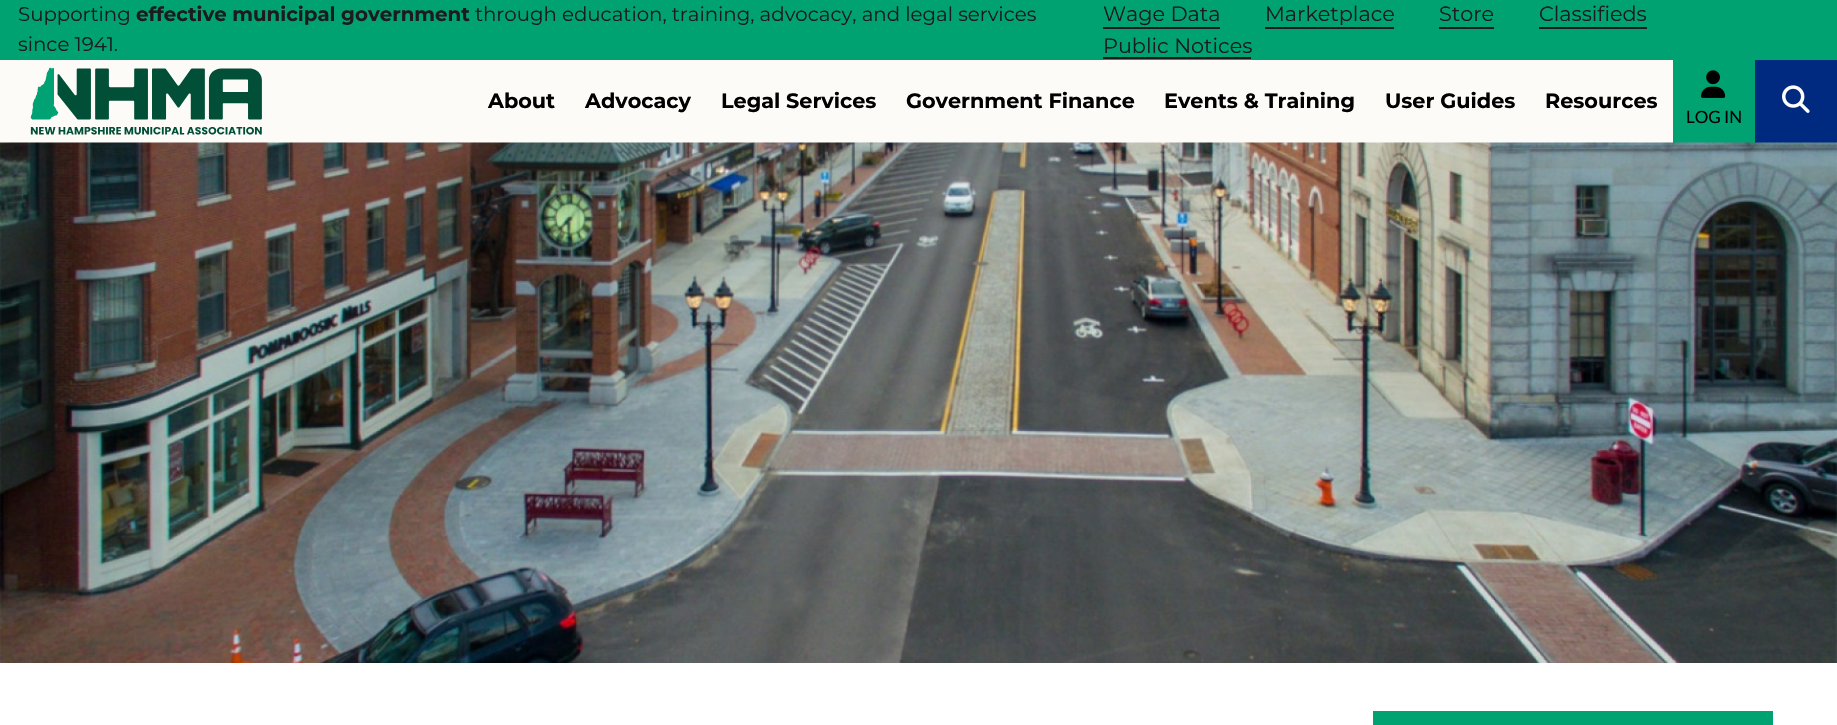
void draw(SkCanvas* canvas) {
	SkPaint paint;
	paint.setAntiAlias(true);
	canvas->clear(0xffffffff);
	paint.setColor(0xfffdfbf7);
	canvas->drawRect(SkRect::MakeXYWH(0, 60, 1673, 83), paint);
	paint.setColor(0xff01a272);
	canvas->drawRect(SkRect::MakeXYWH(0, 0, 1837, 60), paint);
	SkFont f1(fontMgr->matchFamilyStyle("Montserrat", SkFontStyle::Normal()), 19.75);
	f1.setSubpixel(true);
	paint.setColor(0xff1c1c1c);
	canvas->drawString("Supporting", 18, 21, f1, paint);
	SkFont f2(fontMgr->matchFamilyStyle("Montserrat", SkFontStyle::Bold()), 19.75);
	f2.setSubpixel(true);
	canvas->drawString("effective municipal government", 136, 21, f2, paint);
	canvas->drawString("through education, training, advocacy, and legal services", 475, 21, f1, paint);
	canvas->drawString("since 1941.", 18, 51, f1, paint);
	SkFont f3(fontMgr->matchFamilyStyle("Montserrat", SkFontStyle::Normal()), 20.75);
	f3.setSubpixel(true);
	canvas->drawString("Wage Data", 1103, 21, f3, paint);
	canvas->drawRect(SkRect::MakeXYWH(1103, 27, 117, 2), paint);
	canvas->drawString("Marketplace", 1265, 21, f3, paint);
	canvas->drawRect(SkRect::MakeXYWH(1265, 27, 129, 2), paint);
	canvas->drawString("Store", 1439, 21, f3, paint);
	canvas->drawRect(SkRect::MakeXYWH(1439, 27, 55, 2), paint);
	canvas->drawString("Classifieds", 1539, 21, f3, paint);
	canvas->drawRect(SkRect::MakeXYWH(1539, 27, 108, 2), paint);
	canvas->drawString("Public Notices", 1103, 53, f3, paint);
	canvas->drawRect(SkRect::MakeXYWH(1103, 57, 148, 2), paint);
	canvas->drawImageRect(SkImages::DeferredFromEncodedData(SkData::MakeFromFileName("img1.png")), SkRect::MakeXYWH(30, 67, 232, 68), SkSamplingOptions());
	SkFont f4(fontMgr->matchFamilyStyle("Montserrat", SkFontStyle::Bold()), 20.75);
	f4.setSubpixel(true);
	paint.setColor(0xff000000);
	canvas->drawString("About", 488, 108, f4, paint);
	canvas->drawString("Advocacy", 585, 108, f4, paint);
	canvas->drawString("Legal Services", 721, 108, f4, paint);
	canvas->drawString("Government Finance", 906, 108, f4, paint);
	canvas->drawString("Events & Training", 1164, 108, f4, paint);
	canvas->drawString("User Guides", 1385, 108, f4, paint);
	canvas->drawString("Resources", 1545, 108, f4, paint);
	paint.setColor(0xff002a80);
	canvas->drawRect(SkRect::MakeXYWH(1755, 60, 82, 83), paint);
	canvas->drawImageRect(SkImages::DeferredFromEncodedData(SkData::MakeFromFileName("img2.png")), SkRect::MakeXYWH(1782, 85, 28, 28), SkSamplingOptions());
	paint.setColor(0xff01a272);
	canvas->drawRect(SkRect::MakeXYWH(1673, 60, 82, 83), paint);
	canvas->drawImageRect(SkImages::DeferredFromEncodedData(SkData::MakeFromFileName("img3.png")), SkRect::MakeXYWH(1701, 70, 25, 28), SkSamplingOptions());
	SkFont f5(fontMgr->matchFamilyStyle("Lato", SkFontStyle::Normal()), 17);
	f5.setSubpixel(true);
	paint.setColor(0xff000000);
	canvas->drawString("LOG IN", 1686, 123, f5, paint);
	canvas->drawImageRect(SkImages::DeferredFromEncodedData(SkData::MakeFromFileName("img4.png")), SkRect::MakeXYWH(0, 142, 1837, 521), SkSamplingOptions());
	paint.setColor(0xff01a272);
	canvas->drawRect(SkRect::MakeXYWH(1373, 711, 400, 14), paint);
}
